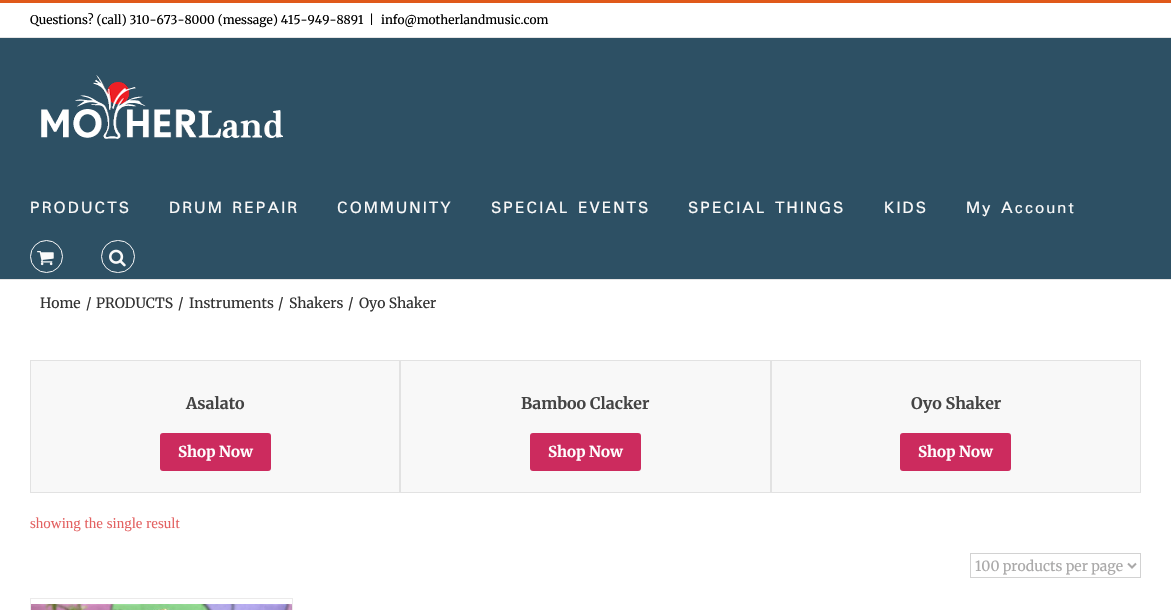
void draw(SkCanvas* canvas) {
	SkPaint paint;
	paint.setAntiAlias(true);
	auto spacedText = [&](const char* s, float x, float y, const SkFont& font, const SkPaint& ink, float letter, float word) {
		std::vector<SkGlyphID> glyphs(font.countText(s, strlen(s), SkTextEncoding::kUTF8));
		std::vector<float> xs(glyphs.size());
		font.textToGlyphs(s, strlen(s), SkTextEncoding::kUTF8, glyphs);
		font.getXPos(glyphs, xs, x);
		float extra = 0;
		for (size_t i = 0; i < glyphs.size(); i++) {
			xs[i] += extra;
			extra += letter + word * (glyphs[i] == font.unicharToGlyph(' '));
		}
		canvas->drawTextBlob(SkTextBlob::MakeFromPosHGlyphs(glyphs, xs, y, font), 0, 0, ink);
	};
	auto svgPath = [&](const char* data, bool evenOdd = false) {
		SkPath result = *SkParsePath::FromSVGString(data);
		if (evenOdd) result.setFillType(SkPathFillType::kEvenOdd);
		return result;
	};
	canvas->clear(0xffffffff);
	paint.setColor(0xffe0591a);
	canvas->drawRect(SkRect::MakeXYWH(0, 0, 1171, 3), paint);
	paint.setColor(0xffe5e5e5);
	canvas->drawRect(SkRect::MakeXYWH(0, 37, 1171, 1), paint);
	SkFont f1(fontMgr->matchFamilyStyle("Merriweather", SkFontStyle::Normal()), 12);
	f1.setSubpixel(true);
	paint.setColor(0xff000000);
	canvas->drawString("Questions? (call) 310-673-8000 (message) 415-949-8891", 30, 24, f1, paint);
	canvas->drawString("|", 369, 24, f1, paint);
	canvas->drawString("info@motherlandmusic.com", 381, 24, f1, paint);
	paint.setColor(0xff2d5064);
	canvas->drawRect(SkRect::MakeXYWH(0, 38, 1171, 241), paint);
	paint.setColor(0xffe5e5e5);
	canvas->drawRect(SkRect::MakeXYWH(0, 279, 1171, 1), paint);
	canvas->drawImageRect(SkImages::DeferredFromEncodedData(SkData::MakeFromFileName("img1.png")), SkRect::MakeXYWH(41, 75, 242, 64), SkSamplingOptions());
	SkFont f2(fontMgr->matchFamilyStyle("Padauk", SkFontStyle::Normal()), 18);
	f2.setSubpixel(true);
	paint.setColor(0xfff9f9f9);
	spacedText("PRODUCTS", 30, 213, f2, paint, 2, 0);
	spacedText("DRUM REPAIR", 169, 213, f2, paint, 2, 0);
	spacedText("COMMUNITY", 337, 213, f2, paint, 2, 0);
	spacedText("SPECIAL EVENTS", 491, 213, f2, paint, 2, 0);
	spacedText("SPECIAL THINGS", 688, 213, f2, paint, 2, 0);
	spacedText("KIDS", 884, 213, f2, paint, 2, 0);
	spacedText("My Account", 966, 213, f2, paint, 2, 0);
	paint.setStroke(true);
	paint.setStrokeWidth(1);
	canvas->drawCircle(46.5, 256.5, 16, paint);
	canvas->drawImageRect(SkImages::DeferredFromEncodedData(SkData::MakeFromFileName("img2.png")), SkRect::MakeXYWH(37, 251, 17, 15), SkSamplingOptions());
	canvas->drawRoundRect(SkRect::MakeXYWH(101.5, 240.5, 33, 32), 16, 16, paint);
	canvas->drawImageRect(SkImages::DeferredFromEncodedData(SkData::MakeFromFileName("img3.png")), SkRect::MakeXYWH(109, 249, 17, 18), SkSamplingOptions());
	SkFont f3(fontMgr->matchFamilyStyle("Merriweather", SkFontStyle::Normal()), 14);
	f3.setSubpixel(true);
	paint.setStroke(false);
	paint.setColor(0xff333333);
	canvas->drawString("Home", 40, 308, f3, paint);
	canvas->drawString("/", 86, 308, f3, paint);
	canvas->drawString("PRODUCTS", 96, 308, f3, paint);
	canvas->drawString("/", 178, 308, f3, paint);
	canvas->drawString("Instruments", 189, 308, f3, paint);
	canvas->drawString("/", 278, 308, f3, paint);
	canvas->drawString("Shakers", 289, 308, f3, paint);
	canvas->drawString("/", 348, 308, f3, paint);
	canvas->drawString("Oyo Shaker", 359, 308, f3, paint);
	paint.setColor(0xfff8f8f8);
	canvas->drawRect(SkRect::MakeXYWH(30.5, 360.5, 369, 132), paint);
	paint.setStroke(true);
	paint.setColor(0xffe2e2e2);
	canvas->drawRect(SkRect::MakeXYWH(30.5, 360.5, 369, 132), paint);
	SkFont f4(fontMgr->matchFamilyStyle("Merriweather", SkFontStyle::Bold()), 16);
	f4.setSubpixel(true);
	paint.setStroke(false);
	paint.setColor(0xff444444);
	canvas->drawString("Asalato", 186, 409, f4, paint);
	paint.setColor(0xffcc2b5e);
	canvas->drawRoundRect(SkRect::MakeXYWH(160, 433, 111, 38), 3, 3, paint);
	SkFont f5(fontMgr->matchFamilyStyle("Merriweather", SkFontStyle::Bold()), 15);
	f5.setSubpixel(true);
	paint.setColor(0xffffffff);
	canvas->drawString("Shop Now", 178, 457, f5, paint);
	paint.setColor(0xfff8f8f8);
	canvas->drawRect(SkRect::MakeXYWH(400.5, 360.5, 370, 132), paint);
	paint.setStroke(true);
	paint.setColor(0xffe2e2e2);
	canvas->drawRect(SkRect::MakeXYWH(400.5, 360.5, 370, 132), paint);
	paint.setStroke(false);
	paint.setColor(0xff444444);
	canvas->drawString("Bamboo Clacker", 521, 409, f4, paint);
	paint.setColor(0xffcc2b5e);
	canvas->drawRoundRect(SkRect::MakeXYWH(530, 433, 111, 38), 3, 3, paint);
	paint.setColor(0xffffffff);
	canvas->drawString("Shop Now", 548, 457, f5, paint);
	paint.setColor(0xfff8f8f8);
	canvas->drawRect(SkRect::MakeXYWH(771.5, 360.5, 369, 132), paint);
	paint.setStroke(true);
	paint.setColor(0xffe2e2e2);
	canvas->drawRect(SkRect::MakeXYWH(771.5, 360.5, 369, 132), paint);
	paint.setStroke(false);
	paint.setColor(0xff444444);
	canvas->drawString("Oyo Shaker", 911, 409, f4, paint);
	paint.setColor(0xffcc2b5e);
	canvas->drawRoundRect(SkRect::MakeXYWH(900, 433, 111, 38), 3, 3, paint);
	paint.setColor(0xffffffff);
	canvas->drawString("Shop Now", 918, 457, f5, paint);
	SkFont f6(fontMgr->matchFamilyStyle("Liberation Serif", SkFontStyle::Normal()), 15);
	f6.setSubpixel(true);
	paint.setColor(0xffe36161);
	canvas->drawString("showing the single result", 30, 528, f6, paint);
	paint.setStroke(true);
	paint.setColor(0xffd2d2d2);
	canvas->drawRect(SkRect::MakeXYWH(970.5, 553.5, 170, 24), paint);
	paint.setStrokeWidth(2);
	paint.setColor(0xffaaa9a9);
	canvas->drawPath(svgPath("M1128 563.5L1132 567.5L1136 563.5"), paint);
	paint.setStroke(false);
	canvas->drawString("100 products per page", 975, 571, f3, paint);
	paint.setColor(0xffebeaea);
	canvas->drawRect(SkRect::MakeXYWH(30, 598, 263, 1), paint);
	canvas->drawRect(SkRect::MakeXYWH(292, 598, 1, 12), paint);
	canvas->drawRect(SkRect::MakeXYWH(30, 598, 1, 12), paint);
	canvas->drawImageRect(SkImages::DeferredFromEncodedData(SkData::MakeFromFileName("img4.png")), SkRect::MakeXYWH(31, 604, 261, 6), SkSamplingOptions());
}
